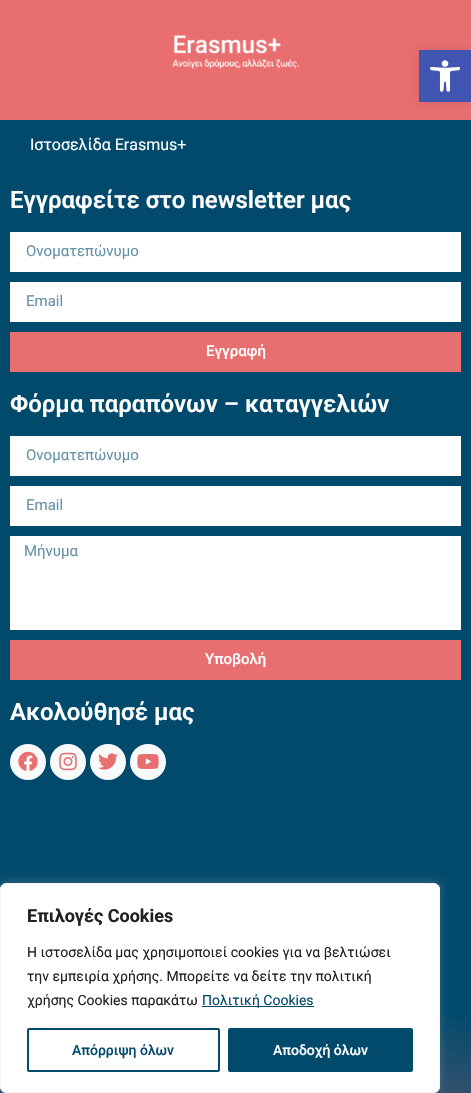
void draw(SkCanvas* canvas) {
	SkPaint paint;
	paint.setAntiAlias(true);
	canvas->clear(0xff024a6c);
	paint.setColor(0xffe86e70);
	canvas->drawRect(SkRect::MakeXYWH(0, 0, 471, 120), paint);
	canvas->drawImageRect(SkImages::DeferredFromEncodedData(SkData::MakeFromFileName("img1.png")), SkRect::MakeXYWH(172, 35, 127, 34), SkSamplingOptions());
	paint.setColor(0x1a000000);
	paint.setMaskFilter(SkMaskFilter::MakeBlur(kNormal_SkBlurStyle, 5));
	canvas->drawRect(SkRect::MakeXYWH(419, 50, 52, 52), paint);
	paint.setMaskFilter(nullptr);
	paint.setColor(0xff4054b2);
	canvas->drawRect(SkRect::MakeXYWH(419, 50, 52, 52), paint);
	canvas->drawImageRect(SkImages::DeferredFromEncodedData(SkData::MakeFromFileName("img2.png")), SkRect::MakeXYWH(430, 60, 30, 32), SkSamplingOptions());
	SkFont f1(fontMgr->matchFamilyStyle("Roboto", SkFontStyle::Normal()), 16);
	f1.setSubpixel(true);
	paint.setColor(0xffffffff);
	canvas->drawString("Ιστοσελίδα Erasmus+", 30, 150, f1, paint);
	SkFont f2(fontMgr->matchFamilyStyle("Roboto", SkFontStyle(600, SkFontStyle::kNormal_Width, SkFontStyle::kUpright_Slant)), 24);
	f2.setSubpixel(true);
	canvas->drawString("Εγγραφείτε στο newsletter μας", 10, 208, f2, paint);
	canvas->drawRect(SkRect::MakeXYWH(10, 232, 451, 40), paint);
	SkFont f3(fontMgr->matchFamilyStyle("Roboto", SkFontStyle::Normal()), 15);
	f3.setSubpixel(true);
	paint.setColor(0xff6692a7);
	canvas->drawString("Ονοματεπώνυμο", 26, 256, f3, paint);
	paint.setColor(0xffffffff);
	canvas->drawRect(SkRect::MakeXYWH(10, 282, 451, 40), paint);
	paint.setColor(0xff6692a7);
	canvas->drawString("Email", 26, 306, f3, paint);
	paint.setColor(0xffe86f6f);
	canvas->drawRect(SkRect::MakeXYWH(10, 332, 451, 40), paint);
	SkFont f4(fontMgr->matchFamilyStyle("Roboto", SkFontStyle(500, SkFontStyle::kNormal_Width, SkFontStyle::kUpright_Slant)), 15);
	f4.setSubpixel(true);
	paint.setColor(0xffffffff);
	canvas->drawString("Εγγραφή", 206, 356, f4, paint);
	canvas->drawString("Φόρμα παραπόνων – καταγγελιών", 10, 412, f2, paint);
	canvas->drawRect(SkRect::MakeXYWH(10, 436, 451, 40), paint);
	paint.setColor(0xff6692a7);
	canvas->drawString("Ονοματεπώνυμο", 26, 460, f3, paint);
	paint.setColor(0xffffffff);
	canvas->drawRect(SkRect::MakeXYWH(10, 486, 451, 40), paint);
	paint.setColor(0xff6692a7);
	canvas->drawString("Email", 26, 510, f3, paint);
	paint.setColor(0xffffffff);
	canvas->drawRect(SkRect::MakeXYWH(10, 536, 451, 94), paint);
	paint.setColor(0xff6692a7);
	canvas->drawString("Μήνυμα", 24, 556, f3, paint);
	paint.setColor(0xffe86f6f);
	canvas->drawRect(SkRect::MakeXYWH(10, 640, 451, 40), paint);
	paint.setColor(0xffffffff);
	canvas->drawString("Υποβολή", 205, 664, f4, paint);
	canvas->drawString("Ακολούθησέ μας", 10, 720, f2, paint);
	paint.setColor(0xfff7fafb);
	canvas->drawCircle(28, 762, 18, paint);
	canvas->drawImageRect(SkImages::DeferredFromEncodedData(SkData::MakeFromFileName("img3.png")), SkRect::MakeXYWH(18, 751, 20, 20), SkSamplingOptions());
	canvas->drawCircle(68, 762, 18, paint);
	canvas->drawImageRect(SkImages::DeferredFromEncodedData(SkData::MakeFromFileName("img4.png")), SkRect::MakeXYWH(59, 752, 18, 19), SkSamplingOptions());
	canvas->drawCircle(108, 762, 18, paint);
	canvas->drawImageRect(SkImages::DeferredFromEncodedData(SkData::MakeFromFileName("img5.png")), SkRect::MakeXYWH(98, 753, 20, 17), SkSamplingOptions());
	canvas->drawCircle(148, 762, 18, paint);
	canvas->drawImageRect(SkImages::DeferredFromEncodedData(SkData::MakeFromFileName("img6.png")), SkRect::MakeXYWH(137, 754, 22, 15), SkSamplingOptions());
	{
		const SkColor colors[] = {0xff024a6c, 0xffe86e70};
		const float stops[] = {0.23, 1};
		const SkPoint ends[] = {{235, 890}, {236, 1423}};
		paint.setShader(SkGradientShader::MakeLinear(ends, colors, stops, 2, SkTileMode::kClamp));
		paint.setAlpha(255);
	}
	canvas->drawRect(SkRect::MakeXYWH(0, 1017, 471, 76), paint);
	paint.setShader(nullptr);
	paint.setColor(0x4dacabab);
	paint.setMaskFilter(SkMaskFilter::MakeBlur(kNormal_SkBlurStyle, 5));
	canvas->drawRoundRect(SkRect::MakeXYWH(0, 882, 440, 210), 6, 6, paint);
	paint.setMaskFilter(nullptr);
	paint.setColor(0xffffffff);
	canvas->drawRoundRect(SkRect::MakeXYWH(0.5, 883.5, 439, 209), 5.5, 5.5, paint);
	paint.setStroke(true);
	paint.setStrokeWidth(1);
	paint.setColor(0xfff4f4f4);
	canvas->drawRoundRect(SkRect::MakeXYWH(0.5, 883.5, 439, 209), 5.5, 5.5, paint);
	SkFont f5(fontMgr->matchFamilyStyle("Roboto", SkFontStyle::Bold()), 18);
	f5.setSubpixel(true);
	paint.setStroke(false);
	paint.setColor(0xff212121);
	canvas->drawString("Επιλογές Cookies", 27, 922, f5, paint);
	SkFont f6(fontMgr->matchFamilyStyle("Roboto", SkFontStyle::Normal()), 14);
	f6.setSubpixel(true);
	canvas->drawString("Η ιστοσελίδα μας χρησιμοποιεί cookies για να βελτιώσει", 27, 957, f6, paint);
	canvas->drawString("την εμπειρία χρήσης. Μπορείτε να δείτε την πολιτική", 27, 981, f6, paint);
	canvas->drawString("χρήσης Cookies παρακάτω", 27, 1005, f6, paint);
	paint.setColor(0xff024a6c);
	canvas->drawRect(SkRect::MakeXYWH(202, 1006, 112, 1), paint);
	canvas->drawString("Πολιτική Cookies", 202, 1005, f6, paint);
	paint.setStroke(true);
	paint.setStrokeWidth(2);
	canvas->drawRoundRect(SkRect::MakeXYWH(28, 1029, 191, 42), 1, 1, paint);
	SkFont f7(fontMgr->matchFamilyStyle("Roboto", SkFontStyle(500, SkFontStyle::kNormal_Width, SkFontStyle::kUpright_Slant)), 14);
	f7.setSubpixel(true);
	paint.setStroke(false);
	canvas->drawString("Απόρριψη όλων", 72, 1055, f7, paint);
	canvas->drawRoundRect(SkRect::MakeXYWH(229, 1029, 183, 42), 1, 1, paint);
	paint.setStroke(true);
	canvas->drawRoundRect(SkRect::MakeXYWH(229, 1029, 183, 42), 1, 1, paint);
	paint.setStroke(false);
	paint.setColor(0xffffffff);
	canvas->drawString("Αποδοχή όλων", 273, 1055, f7, paint);
}
